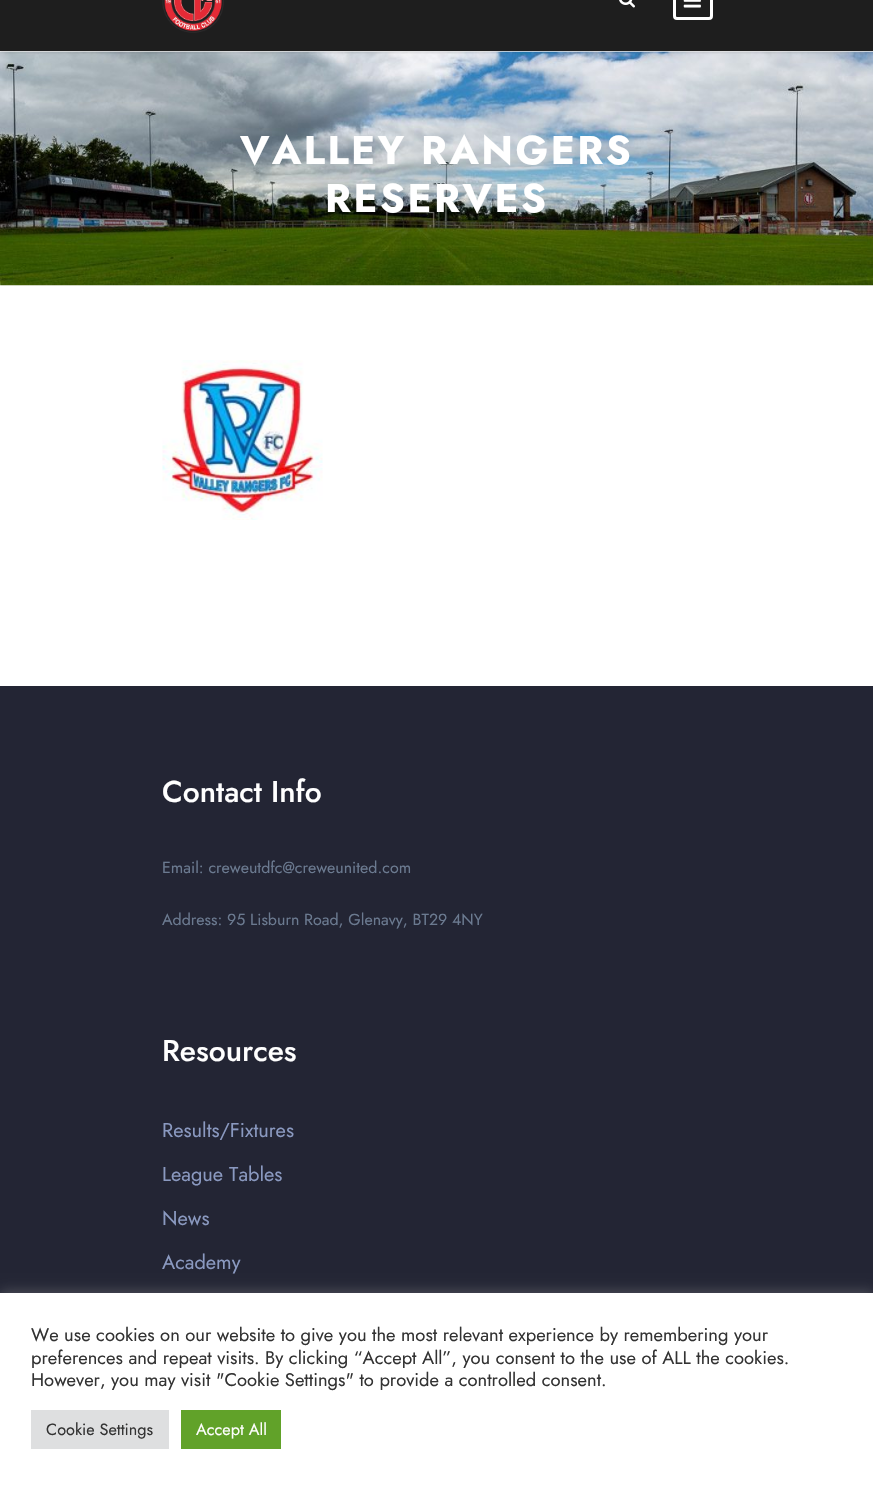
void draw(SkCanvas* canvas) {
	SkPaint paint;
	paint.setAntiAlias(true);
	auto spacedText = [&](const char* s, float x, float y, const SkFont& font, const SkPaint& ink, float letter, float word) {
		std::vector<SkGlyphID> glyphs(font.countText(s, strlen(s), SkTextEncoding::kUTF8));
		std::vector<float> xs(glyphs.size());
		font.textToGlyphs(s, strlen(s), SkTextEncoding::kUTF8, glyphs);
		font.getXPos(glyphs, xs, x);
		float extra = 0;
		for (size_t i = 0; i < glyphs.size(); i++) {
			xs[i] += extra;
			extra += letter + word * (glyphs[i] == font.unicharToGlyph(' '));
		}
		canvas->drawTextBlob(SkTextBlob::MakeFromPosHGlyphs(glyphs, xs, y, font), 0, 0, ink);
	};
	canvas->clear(0xffffffff);
	canvas->drawImageRect(SkImages::DeferredFromEncodedData(SkData::MakeFromFileName("img4.png")), SkRect::MakeXYWH(0, 51, 873, 235), SkSamplingOptions());
	paint.setColor(0x1a000000);
	paint.setMaskFilter(SkMaskFilter::MakeBlur(kNormal_SkBlurStyle, 1));
	canvas->drawRect(SkRect::MakeXYWH(0, -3, 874, 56), paint);
	paint.setMaskFilter(nullptr);
	paint.setColor(0xff1e1e1e);
	canvas->drawRect(SkRect::MakeXYWH(0, 0, 873, 51), paint);
	canvas->drawImageRect(SkImages::DeferredFromEncodedData(SkData::MakeFromFileName("img1.png")), SkRect::MakeXYWH(162, 0, 62, 33), SkSamplingOptions());
	canvas->drawImageRect(SkImages::DeferredFromEncodedData(SkData::MakeFromFileName("img2.png")), SkRect::MakeXYWH(619, 0, 16, 8), SkSamplingOptions());
	paint.setStroke(true);
	paint.setStrokeWidth(3);
	paint.setColor(0xffffffff);
	canvas->drawRoundRect(SkRect::MakeXYWH(674.5, -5.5, 37, 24), 2.5, 2.5, paint);
	canvas->drawImageRect(SkImages::DeferredFromEncodedData(SkData::MakeFromFileName("img3.png")), SkRect::MakeXYWH(683, 0, 18, 8), SkSamplingOptions());
	SkFont f1(fontMgr->matchFamilyStyle("Jost", SkFontStyle::Bold()), 40);
	f1.setSubpixel(true);
	paint.setStroke(false);
	spacedText("VALLEY RANGERS", 240, 164, f1, paint, 2.5, 0);
	spacedText("RESERVES", 325, 212, f1, paint, 2.5, 0);
	canvas->drawImageRect(SkImages::DeferredFromEncodedData(SkData::MakeFromFileName("img5.png")), SkRect::MakeXYWH(162, 360, 161, 160), SkSamplingOptions());
	paint.setColor(0xff232534);
	canvas->drawRect(SkRect::MakeXYWH(0, 686, 873, 607), paint);
	SkFont f2(fontMgr->matchFamilyStyle("Jost", SkFontStyle(500, SkFontStyle::kNormal_Width, SkFontStyle::kUpright_Slant)), 30);
	f2.setSubpixel(true);
	paint.setColor(0xffffffff);
	canvas->drawString("Contact Info", 162, 802, f2, paint);
	SkFont f3(fontMgr->matchFamilyStyle("Jost", SkFontStyle::Normal()), 16);
	f3.setSubpixel(true);
	paint.setColor(0xff6b7a90);
	canvas->drawString("Email: creweutdfc@creweunited.com", 162, 873, f3, paint);
	canvas->drawString("Address: 95 Lisburn Road, Glenavy, BT29 4NY", 162, 925, f3, paint);
	paint.setColor(0xffffffff);
	canvas->drawString("Resources", 162, 1061, f2, paint);
	SkFont f4(fontMgr->matchFamilyStyle("Jost", SkFontStyle::Normal()), 20);
	f4.setSubpixel(true);
	paint.setColor(0xff8a99c0);
	canvas->drawString("Results/Fixtures", 162, 1137, f4, paint);
	canvas->drawString("League Tables", 162, 1181, f4, paint);
	canvas->drawString("News", 162, 1225, f4, paint);
	canvas->drawString("Academy", 162, 1269, f4, paint);
	paint.setColor(0x4dacabab);
	paint.setMaskFilter(SkMaskFilter::MakeBlur(kNormal_SkBlurStyle, 6));
	canvas->drawRect(SkRect::MakeXYWH(0, 1291, 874, 194), paint);
	paint.setMaskFilter(nullptr);
	paint.setColor(0xffffffff);
	canvas->drawRect(SkRect::MakeXYWH(0, 1293, 873, 193), paint);
	SkFont f5(fontMgr->matchFamilyStyle("Jost", SkFontStyle::Normal()), 18.35);
	f5.setSubpixel(true);
	paint.setColor(0xff333333);
	canvas->drawString("We use cookies on our website to give you the most relevant experience by remembering your", 31, 1341, f5, paint);
	canvas->drawString("preferences and repeat visits. By clicking “Accept All”, you consent to the use of ALL the cookies.", 31, 1364, f5, paint);
	canvas->drawString("However, you may visit \"Cookie Settings\" to provide a controlled consent.", 31, 1386, f5, paint);
	paint.setColor(0xffdedfe0);
	canvas->drawRect(SkRect::MakeXYWH(31, 1410, 138, 39), paint);
	SkFont f6(fontMgr->matchFamilyStyle("Jost", SkFontStyle::Normal()), 16.25);
	f6.setSubpixel(true);
	paint.setColor(0xff333333);
	canvas->drawString("Cookie Settings", 46, 1435, f6, paint);
	paint.setColor(0xff61a229);
	canvas->drawRect(SkRect::MakeXYWH(181, 1410, 100, 39), paint);
	paint.setColor(0xffffffff);
	canvas->drawString("Accept All", 196, 1435, f6, paint);
}
